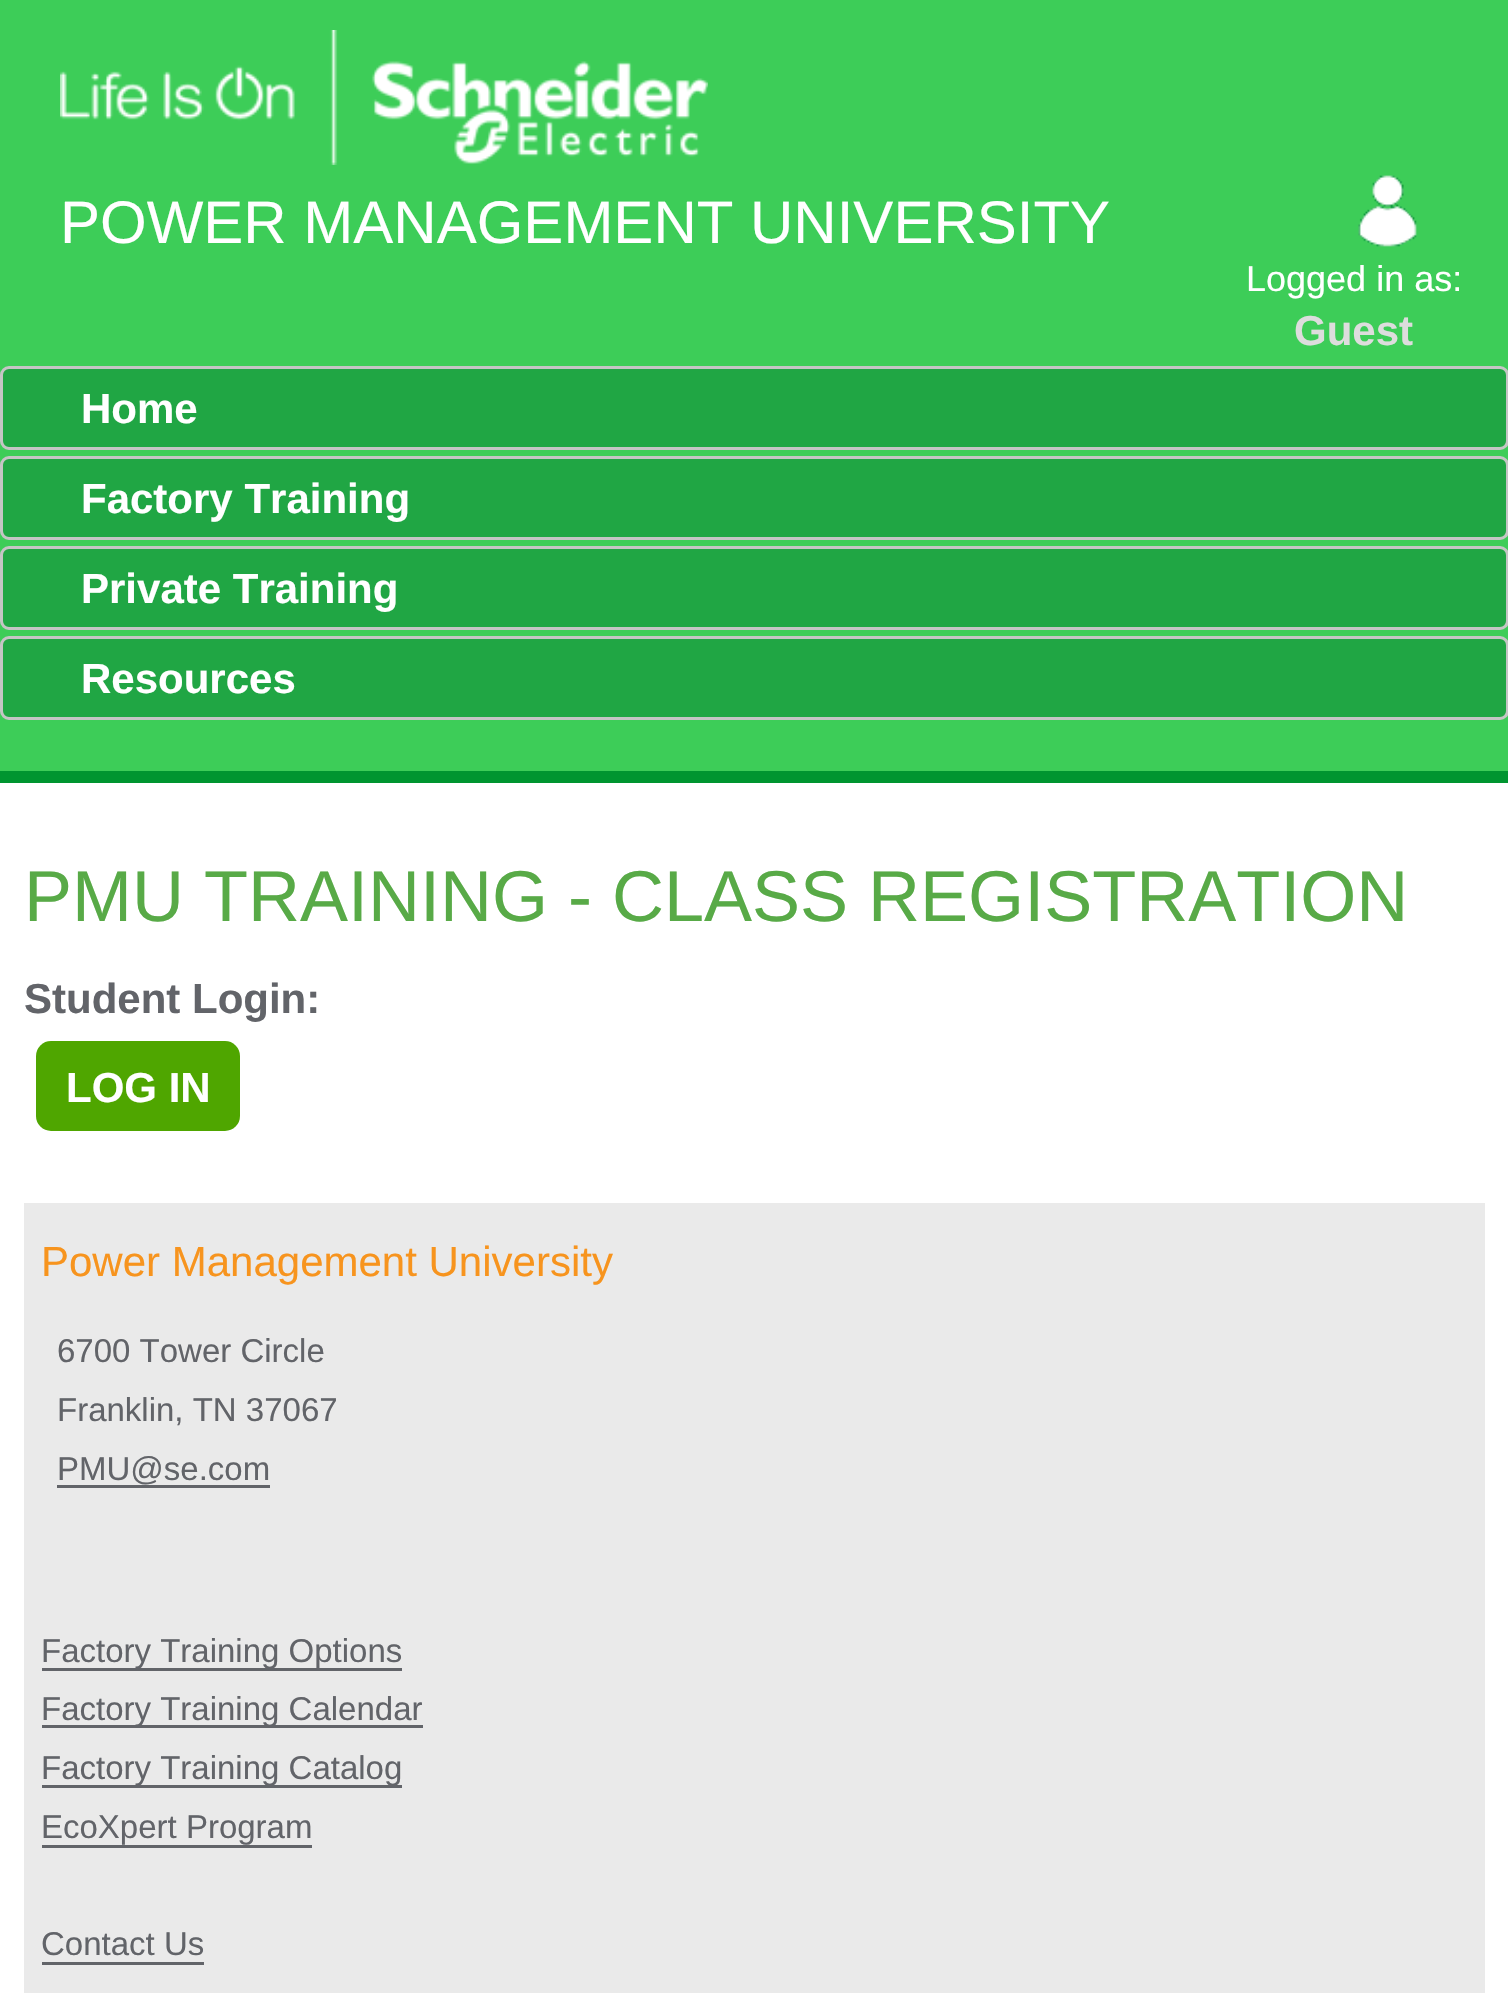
void draw(SkCanvas* canvas) {
	SkPaint paint;
	paint.setAntiAlias(true);
	canvas->clear(0xffffffff);
	paint.setColor(0xff3dcd58);
	canvas->drawRect(SkRect::MakeXYWH(0, 0, 1508, 771), paint);
	paint.setColor(0xff009530);
	canvas->drawRect(SkRect::MakeXYWH(0, 771, 1508, 12), paint);
	canvas->drawImageRect(SkImages::DeferredFromEncodedData(SkData::MakeFromFileName("img1.png")), SkRect::MakeXYWH(60, 30, 648, 135), SkSamplingOptions());
	SkFont f1(fontMgr->matchFamilyStyle("Liberation Sans", SkFontStyle::Normal()), 60);
	f1.setSubpixel(true);
	paint.setColor(0xffffffff);
	canvas->drawString("POWER MANAGEMENT UNIVERSITY", 60, 243, f1, paint);
	canvas->drawImageRect(SkImages::DeferredFromEncodedData(SkData::MakeFromFileName("img2.png")), SkRect::MakeXYWH(1358, 175, 59, 72), SkSamplingOptions());
	SkFont f2(fontMgr->matchFamilyStyle("Liberation Sans", SkFontStyle::Normal()), 36);
	f2.setSubpixel(true);
	canvas->drawString("Logged in as:", 1246, 291, f2, paint);
	SkFont f3(fontMgr->matchFamilyStyle("Liberation Sans", SkFontStyle::Bold()), 42);
	f3.setSubpixel(true);
	paint.setColor(0xffdddddd);
	canvas->drawString("Guest", 1294, 345, f3, paint);
	paint.setColor(0xff20a644);
	canvas->drawRoundRect(SkRect::MakeXYWH(1.5, 367.5, 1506, 81), 7.5, 7.5, paint);
	paint.setStroke(true);
	paint.setStrokeWidth(3);
	paint.setColor(0xffc5c5c5);
	canvas->drawRoundRect(SkRect::MakeXYWH(1.5, 367.5, 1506, 81), 7.5, 7.5, paint);
	paint.setStroke(false);
	paint.setColor(0xffffffff);
	canvas->drawString("Home", 81, 423, f3, paint);
	paint.setColor(0xff20a644);
	canvas->drawRoundRect(SkRect::MakeXYWH(1.5, 457.5, 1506, 81), 7.5, 7.5, paint);
	paint.setStroke(true);
	paint.setColor(0xffc5c5c5);
	canvas->drawRoundRect(SkRect::MakeXYWH(1.5, 457.5, 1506, 81), 7.5, 7.5, paint);
	paint.setStroke(false);
	paint.setColor(0xffffffff);
	canvas->drawString("Factory Training", 81, 513, f3, paint);
	paint.setColor(0xff20a644);
	canvas->drawRoundRect(SkRect::MakeXYWH(1.5, 547.5, 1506, 81), 7.5, 7.5, paint);
	paint.setStroke(true);
	paint.setColor(0xffc5c5c5);
	canvas->drawRoundRect(SkRect::MakeXYWH(1.5, 547.5, 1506, 81), 7.5, 7.5, paint);
	paint.setStroke(false);
	paint.setColor(0xffffffff);
	canvas->drawString("Private Training", 81, 603, f3, paint);
	paint.setColor(0xff20a644);
	canvas->drawRoundRect(SkRect::MakeXYWH(1.5, 637.5, 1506, 81), 7.5, 7.5, paint);
	paint.setStroke(true);
	paint.setColor(0xffc5c5c5);
	canvas->drawRoundRect(SkRect::MakeXYWH(1.5, 637.5, 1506, 81), 7.5, 7.5, paint);
	paint.setStroke(false);
	paint.setColor(0xffffffff);
	canvas->drawString("Resources", 81, 693, f3, paint);
	SkFont f4(fontMgr->matchFamilyStyle("Liberation Sans", SkFontStyle::Normal()), 72);
	f4.setSubpixel(true);
	paint.setColor(0xff58aa47);
	canvas->drawString("PMU TRAINING - CLASS REGISTRATION", 24, 921, f4, paint);
	paint.setColor(0xff626469);
	canvas->drawString("Student Login:", 24, 1013, f3, paint);
	paint.setColor(0xff4fa600);
	canvas->drawRoundRect(SkRect::MakeXYWH(36, 1041, 204, 90), 15, 15, paint);
	paint.setColor(0xffffffff);
	canvas->drawString("LOG IN", 66, 1102, f3, paint);
	paint.setColor(0xffeaeaea);
	canvas->drawRect(SkRect::MakeXYWH(24, 1203, 1461, 790), paint);
	SkFont f5(fontMgr->matchFamilyStyle("Liberation Sans", SkFontStyle::Normal()), 42);
	f5.setSubpixel(true);
	paint.setColor(0xfff7941e);
	canvas->drawString("Power Management University", 41, 1276, f5, paint);
	SkFont f6(fontMgr->matchFamilyStyle("Liberation Sans", SkFontStyle::Normal()), 33);
	f6.setSubpixel(true);
	paint.setColor(0xff626469);
	canvas->drawString("6700 Tower Circle", 57, 1362, f6, paint);
	canvas->drawString("Franklin, TN 37067", 57, 1421, f6, paint);
	canvas->drawString("PMU@se.com", 57, 1480, f6, paint);
	canvas->drawRect(SkRect::MakeXYWH(57, 1485, 213, 3), paint);
	canvas->drawRect(SkRect::MakeXYWH(42, 1668, 360, 3), paint);
	canvas->drawString("Factory Training Options", 41, 1662, f6, paint);
	canvas->drawRect(SkRect::MakeXYWH(42, 1725, 381, 3), paint);
	canvas->drawString("Factory Training Calendar", 41, 1720, f6, paint);
	canvas->drawRect(SkRect::MakeXYWH(42, 1785, 360, 3), paint);
	canvas->drawString("Factory Training Catalog", 41, 1779, f6, paint);
	canvas->drawString("EcoXpert Program", 41, 1838, f6, paint);
	canvas->drawRect(SkRect::MakeXYWH(42, 1845, 270, 3), paint);
	canvas->drawString("Contact Us", 41, 1955, f6, paint);
	canvas->drawRect(SkRect::MakeXYWH(42, 1962, 162, 3), paint);
}
